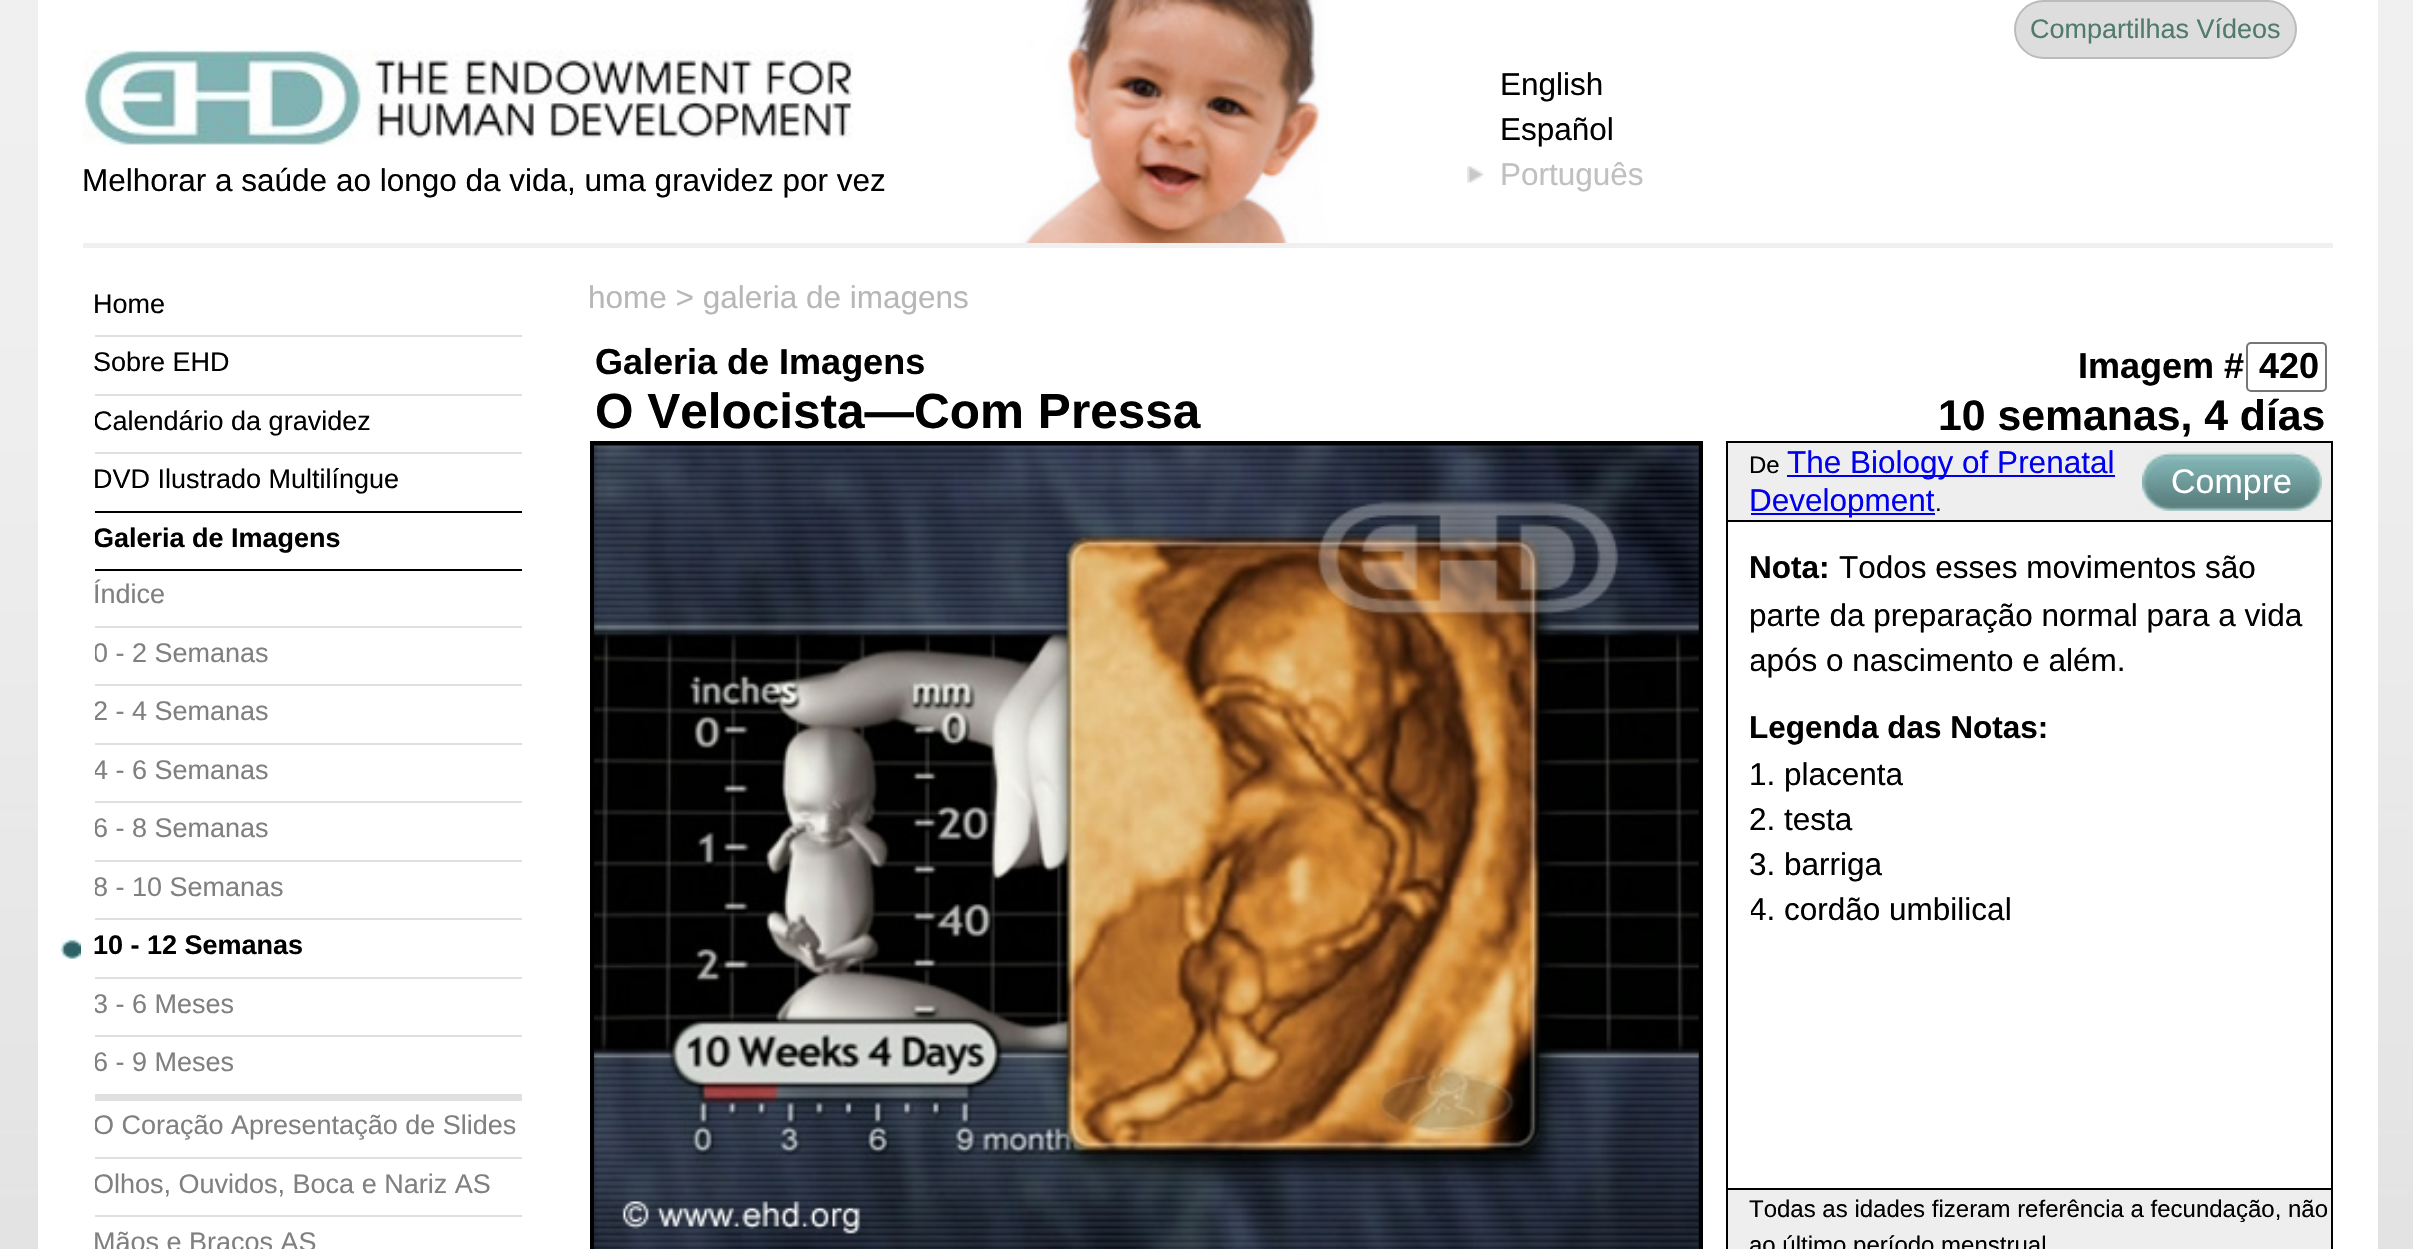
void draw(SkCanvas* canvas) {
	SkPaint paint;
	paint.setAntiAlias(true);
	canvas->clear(0xffffffff);
	canvas->drawImageRect(SkImages::DeferredFromEncodedData(SkData::MakeFromFileName("img1.png")), SkRect::MakeXYWH(0, 0, 2413, 1249), SkSamplingOptions());
	paint.setColor(0xffffffff);
	canvas->drawRect(SkRect::MakeXYWH(38, 0, 2340, 1249), paint);
	canvas->drawImageRect(SkImages::DeferredFromEncodedData(SkData::MakeFromFileName("img2.png")), SkRect::MakeXYWH(1019, 0, 309, 243), SkSamplingOptions());
	paint.setColor(0xffdddddd);
	canvas->drawRoundRect(SkRect::MakeXYWH(2015, 1, 281, 57), 28.5, 28.5, paint);
	paint.setStroke(true);
	paint.setStrokeWidth(2);
	paint.setColor(0xffbbbbbb);
	canvas->drawRoundRect(SkRect::MakeXYWH(2015, 1, 281, 57), 28.5, 28.5, paint);
	SkFont f1(fontMgr->matchFamilyStyle("Liberation Sans", SkFontStyle::Normal()), 27);
	f1.setSubpixel(true);
	paint.setStroke(false);
	paint.setColor(0xff507a6c);
	canvas->drawString("Compartilhas Vídeos", 2030, 38, f1, paint);
	canvas->drawImageRect(SkImages::DeferredFromEncodedData(SkData::MakeFromFileName("img3.png")), SkRect::MakeXYWH(83, 49, 770, 97), SkSamplingOptions());
	SkFont f2(fontMgr->matchFamilyStyle("Liberation Sans", SkFontStyle::Normal()), 31.5);
	f2.setSubpixel(true);
	paint.setColor(0xff000000);
	canvas->drawString("Melhorar a saúde ao longo da vida, uma gravidez por vez", 82, 191, f2, paint);
	canvas->drawString("English", 1500, 95, f2, paint);
	canvas->drawString("Español", 1500, 140, f2, paint);
	canvas->drawImageRect(SkImages::DeferredFromEncodedData(SkData::MakeFromFileName("img4.png")), SkRect::MakeXYWH(1467, 166, 17, 17), SkSamplingOptions());
	paint.setColor(0xffc0c0c0);
	canvas->drawString("Português", 1500, 185, f2, paint);
	paint.setColor(0xfff0f0f0);
	canvas->drawRect(SkRect::MakeXYWH(83, 243, 2250, 5), paint);
	paint.setColor(0xffe0e0e0);
	canvas->drawRect(SkRect::MakeXYWH(95, 335, 427, 2), paint);
	paint.setColor(0xff000000);
	canvas->drawString("Home", 93, 313, f1, paint);
	paint.setColor(0xffe0e0e0);
	canvas->drawRect(SkRect::MakeXYWH(95, 394, 427, 2), paint);
	paint.setColor(0xff000000);
	canvas->drawString("Sobre EHD", 93, 371, f1, paint);
	paint.setColor(0xffe0e0e0);
	canvas->drawRect(SkRect::MakeXYWH(95, 452, 427, 2), paint);
	canvas->save();
	canvas->clipRect(SkRect::MakeXYWH(95, 396, 427, 56));
	paint.setColor(0xff000000);
	canvas->drawString("Calendário da gravidez", 93, 430, f1, paint);
	canvas->restore();
	canvas->drawString("DVD Ilustrado Multilíngue", 93, 488, f1, paint);
	canvas->drawRect(SkRect::MakeXYWH(95, 511, 427, 2), paint);
	canvas->drawRect(SkRect::MakeXYWH(95, 569, 427, 2), paint);
	canvas->save();
	canvas->clipRect(SkRect::MakeXYWH(95, 513, 427, 56));
	SkFont f3(fontMgr->matchFamilyStyle("Liberation Sans", SkFontStyle::Bold()), 27);
	f3.setSubpixel(true);
	canvas->drawString("Galeria de Imagens", 93, 547, f3, paint);
	canvas->restore();
	paint.setColor(0xffe0e0e0);
	canvas->drawRect(SkRect::MakeXYWH(95, 626, 427, 2), paint);
	paint.setColor(0xff808080);
	canvas->drawString("Índice", 93, 603, f1, paint);
	paint.setColor(0xffe0e0e0);
	canvas->drawRect(SkRect::MakeXYWH(95, 684, 427, 2), paint);
	canvas->save();
	canvas->clipRect(SkRect::MakeXYWH(95, 628, 427, 56));
	paint.setColor(0xff808080);
	canvas->drawString("0 - 2 Semanas", 93, 662, f1, paint);
	canvas->restore();
	paint.setColor(0xffe0e0e0);
	canvas->drawRect(SkRect::MakeXYWH(95, 743, 427, 2), paint);
	canvas->save();
	canvas->clipRect(SkRect::MakeXYWH(95, 686, 427, 57));
	paint.setColor(0xff808080);
	canvas->drawString("2 - 4 Semanas", 93, 720, f1, paint);
	canvas->restore();
	paint.setColor(0xffe0e0e0);
	canvas->drawRect(SkRect::MakeXYWH(95, 801, 427, 2), paint);
	canvas->save();
	canvas->clipRect(SkRect::MakeXYWH(95, 745, 427, 56));
	paint.setColor(0xff808080);
	canvas->drawString("4 - 6 Semanas", 93, 779, f1, paint);
	canvas->restore();
	paint.setColor(0xffe0e0e0);
	canvas->drawRect(SkRect::MakeXYWH(95, 860, 427, 2), paint);
	canvas->save();
	canvas->clipRect(SkRect::MakeXYWH(95, 803, 427, 57));
	paint.setColor(0xff808080);
	canvas->drawString("6 - 8 Semanas", 93, 837, f1, paint);
	canvas->restore();
	paint.setColor(0xffe0e0e0);
	canvas->drawRect(SkRect::MakeXYWH(95, 918, 427, 2), paint);
	canvas->save();
	canvas->clipRect(SkRect::MakeXYWH(95, 862, 427, 56));
	paint.setColor(0xff808080);
	canvas->drawString("8 - 10 Semanas", 93, 896, f1, paint);
	canvas->restore();
	paint.setColor(0xffe0e0e0);
	canvas->drawRect(SkRect::MakeXYWH(95, 977, 427, 2), paint);
	canvas->drawImageRect(SkImages::DeferredFromEncodedData(SkData::MakeFromFileName("img5.png")), SkRect::MakeXYWH(60, 938, 21, 21), SkSamplingOptions());
	paint.setColor(0xff000000);
	canvas->drawString("10 - 12 Semanas", 93, 954, f3, paint);
	paint.setColor(0xffe0e0e0);
	canvas->drawRect(SkRect::MakeXYWH(95, 1035, 427, 2), paint);
	canvas->save();
	canvas->clipRect(SkRect::MakeXYWH(95, 979, 427, 56));
	paint.setColor(0xff808080);
	canvas->drawString("3 - 6 Meses", 93, 1013, f1, paint);
	canvas->restore();
	canvas->save();
	canvas->clipRect(SkRect::MakeXYWH(95, 1037, 427, 57));
	canvas->drawString("6 - 9 Meses", 93, 1071, f1, paint);
	canvas->restore();
	paint.setColor(0xffe0e0e0);
	canvas->drawRect(SkRect::MakeXYWH(95, 1157, 427, 2), paint);
	canvas->drawRect(SkRect::MakeXYWH(95, 1094, 427, 7), paint);
	canvas->save();
	canvas->clipRect(SkRect::MakeXYWH(95, 1100, 427, 57));
	paint.setColor(0xff808080);
	canvas->drawString("O Coração Apresentação de Slides", 93, 1134, f1, paint);
	canvas->restore();
	paint.setColor(0xffe0e0e0);
	canvas->drawRect(SkRect::MakeXYWH(95, 1215, 427, 2), paint);
	canvas->save();
	canvas->clipRect(SkRect::MakeXYWH(95, 1159, 427, 56));
	paint.setColor(0xff808080);
	canvas->drawString("Olhos, Ouvidos, Boca e Nariz AS", 93, 1193, f1, paint);
	canvas->restore();
	canvas->drawString("Mãos e Braços AS", 93, 1251, f1, paint);
	paint.setColor(0xffb7b7b7);
	canvas->drawString("home > galeria de imagens", 588, 308, f2, paint);
	SkFont f4(fontMgr->matchFamilyStyle("Liberation Sans", SkFontStyle::Bold()), 36);
	f4.setSubpixel(true);
	paint.setColor(0xff000000);
	canvas->drawString("Galeria de Imagens", 595, 374, f4, paint);
	SkFont f5(fontMgr->matchFamilyStyle("Liberation Sans", SkFontStyle::Bold()), 49.5);
	f5.setSubpixel(true);
	canvas->drawString("O Velocista—Com Pressa", 595, 428, f5, paint);
	canvas->drawString("Imagem #", 2078, 378, f4, paint);
	paint.setStroke(true);
	paint.setColor(0xff767676);
	canvas->drawRoundRect(SkRect::MakeXYWH(2247, 343, 79, 48), 4, 4, paint);
	paint.setStroke(false);
	paint.setColor(0xff000000);
	canvas->drawString("420", 2259, 378, f4, paint);
	SkFont f6(fontMgr->matchFamilyStyle("Liberation Sans", SkFontStyle::Bold()), 42.75);
	f6.setSubpixel(true);
	canvas->drawString("10 semanas, 4 días", 1938, 430, f6, paint);
	paint.setStroke(true);
	paint.setStrokeWidth(5);
	canvas->drawRect(SkRect::MakeXYWH(592.5, 443.5, 1108, 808), paint);
	canvas->drawImageRect(SkImages::DeferredFromEncodedData(SkData::MakeFromFileName("img6.png")), SkRect::MakeXYWH(594, 445, 1105, 804), SkSamplingOptions());
	paint.setStroke(false);
	paint.setColor(0xffeeeeee);
	canvas->drawRect(SkRect::MakeXYWH(1728, 443, 603, 77), paint);
	paint.setColor(0xff000000);
	canvas->drawRect(SkRect::MakeXYWH(1726, 441, 607, 2), paint);
	canvas->drawRect(SkRect::MakeXYWH(2331, 441, 2, 79), paint);
	canvas->drawRect(SkRect::MakeXYWH(1726, 441, 2, 79), paint);
	SkFont f7(fontMgr->matchFamilyStyle("Liberation Sans", SkFontStyle::Normal()), 24);
	f7.setSubpixel(true);
	canvas->drawString("De", 1749, 473, f7, paint);
	paint.setColor(0xff0000ee);
	canvas->drawRect(SkRect::MakeXYWH(1787, 475, 328, 2), paint);
	canvas->drawString("The Biology of Prenatal", 1787, 473, f2, paint);
	canvas->drawImageRect(SkImages::DeferredFromEncodedData(SkData::MakeFromFileName("img7.png")), SkRect::MakeXYWH(2142, 452, 180, 59), SkSamplingOptions());
	SkFont f8(fontMgr->matchFamilyStyle("Liberation Sans", SkFontStyle::Normal()), 34);
	f8.setSubpixel(true);
	paint.setColor(0xffffffff);
	canvas->drawString("Compre", 2171, 493, f8, paint);
	paint.setColor(0xff0000ee);
	canvas->drawRect(SkRect::MakeXYWH(1751, 513, 184, 2), paint);
	canvas->drawString("Development", 1749, 511, f2, paint);
	paint.setColor(0xff000000);
	canvas->drawString(".", 1935, 511, f7, paint);
	paint.setStroke(true);
	paint.setStrokeWidth(2);
	canvas->drawRect(SkRect::MakeXYWH(1727, 521, 605, 668), paint);
	SkFont f9(fontMgr->matchFamilyStyle("Liberation Sans", SkFontStyle::Bold()), 31.5);
	f9.setSubpixel(true);
	paint.setStroke(false);
	canvas->drawString("Nota:", 1749, 578, f9, paint);
	canvas->drawString("Todos esses movimentos são", 1839, 578, f2, paint);
	canvas->drawString("parte da preparação normal para a vida", 1749, 626, f2, paint);
	canvas->save();
	canvas->clipRect(SkRect::MakeXYWH(1751, 522, 580, 666));
	canvas->drawString("após o nascimento e além.", 1749, 671, f2, paint);
	canvas->restore();
	canvas->drawString("Legenda das Notas:", 1749, 738, f9, paint);
	canvas->drawString("1. placenta", 1749, 785, f2, paint);
	canvas->drawString("2. testa", 1749, 830, f2, paint);
	canvas->drawString("3. barriga", 1749, 875, f2, paint);
	canvas->save();
	canvas->clipRect(SkRect::MakeXYWH(1751, 522, 580, 666));
	canvas->drawString("4. cordão umbilical", 1749, 920, f2, paint);
	canvas->restore();
	paint.setColor(0xffeeeeee);
	canvas->drawRect(SkRect::MakeXYWH(1728, 1190, 603, 59), paint);
	paint.setColor(0xff000000);
	canvas->drawRect(SkRect::MakeXYWH(2331, 1190, 2, 59), paint);
	canvas->drawRect(SkRect::MakeXYWH(1726, 1190, 2, 59), paint);
	canvas->drawString("Todas as idades fizeram referência a fecundação, não", 1749, 1217, f7, paint);
	canvas->drawString("ao último período menstrual", 1749, 1253, f7, paint);
}
